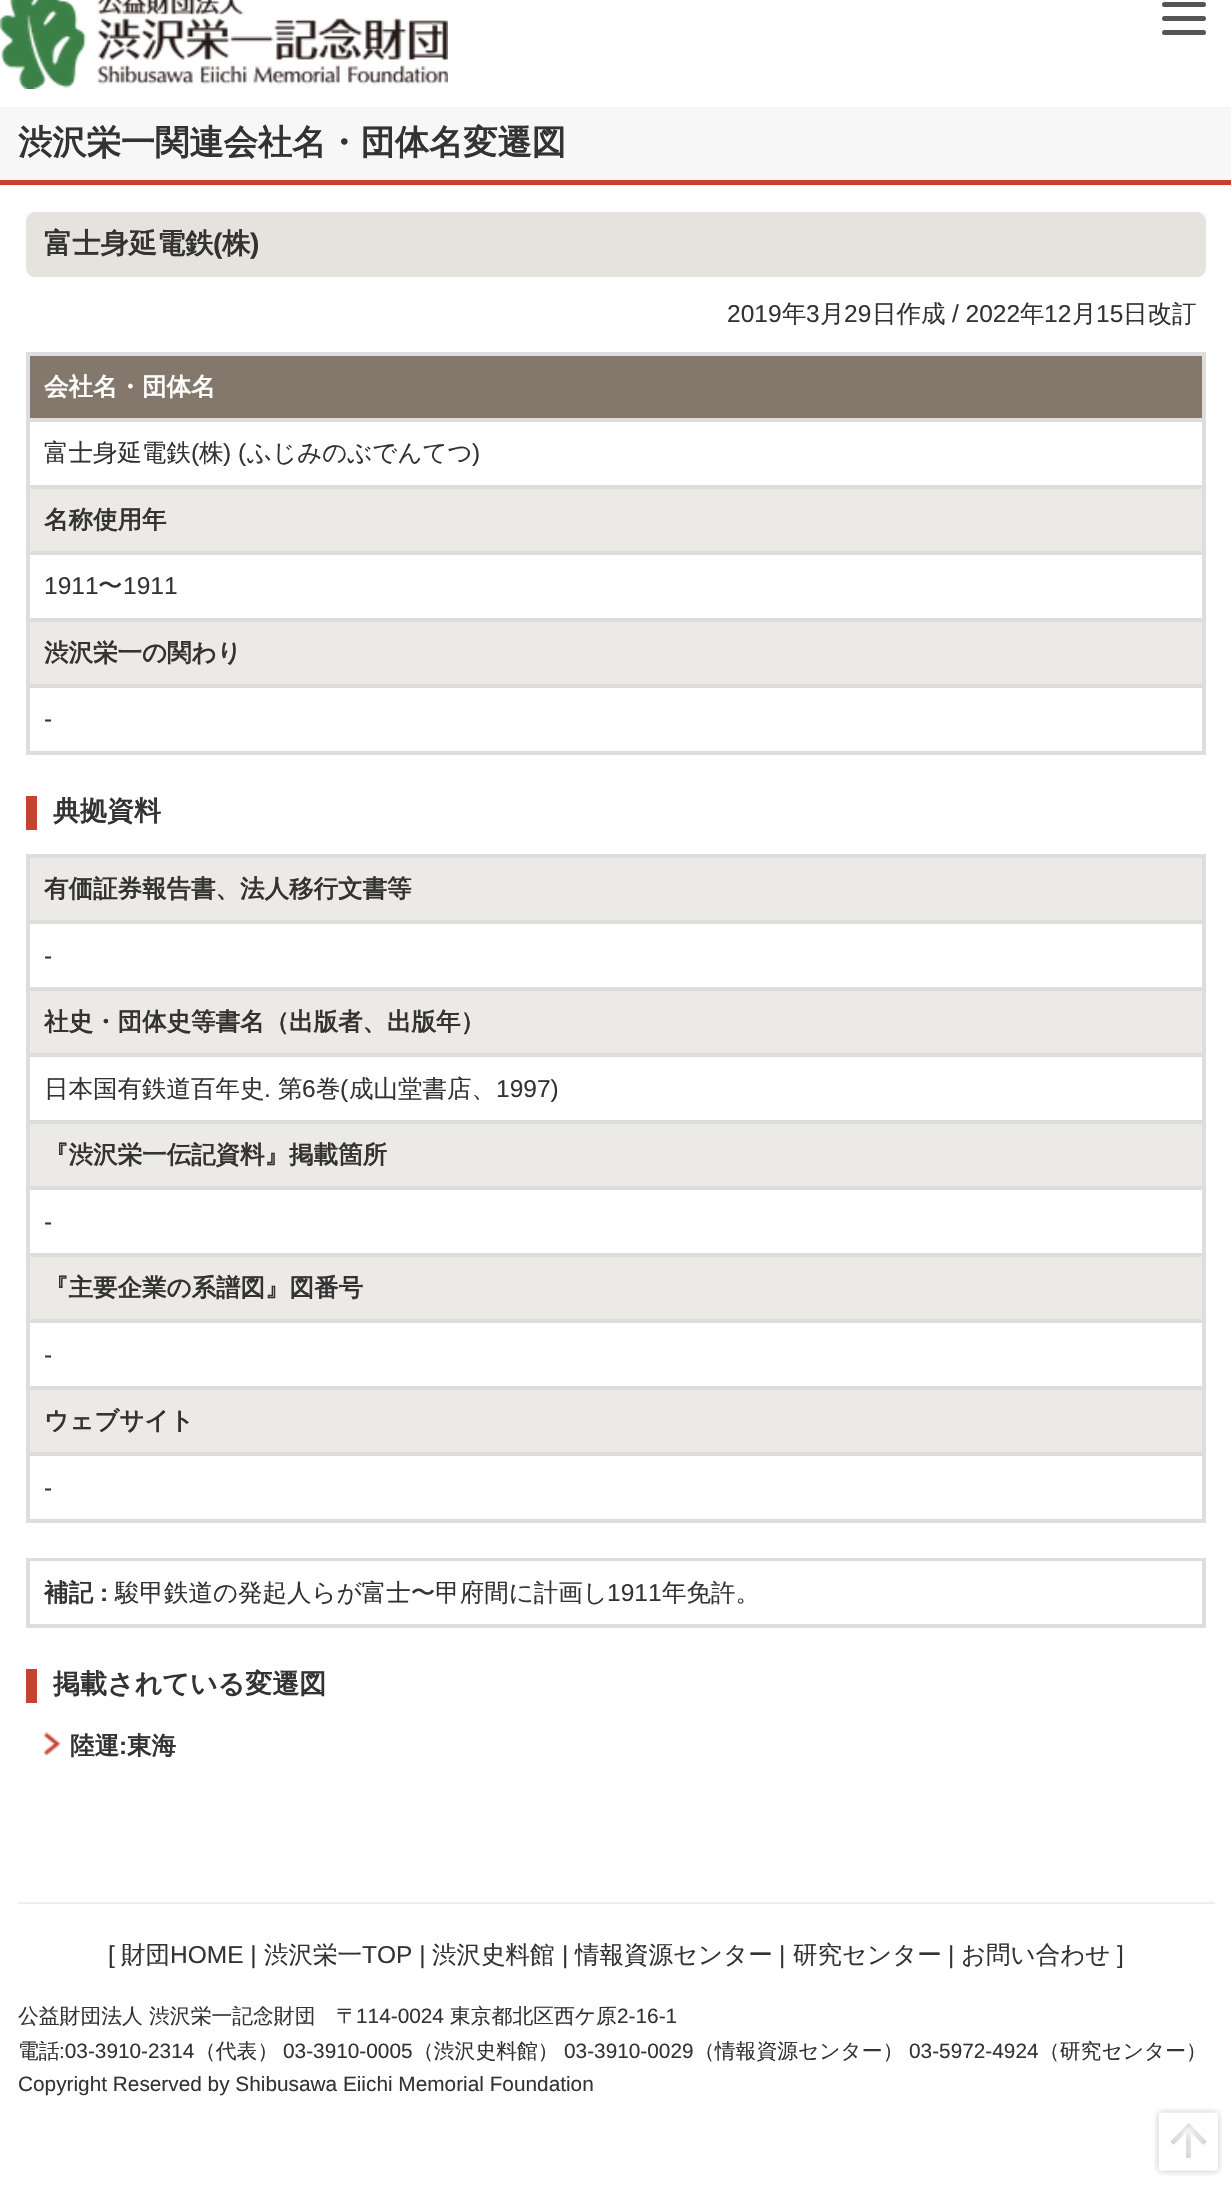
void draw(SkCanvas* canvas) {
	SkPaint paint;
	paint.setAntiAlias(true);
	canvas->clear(0xffffffff);
	canvas->drawImageRect(SkImages::DeferredFromEncodedData(SkData::MakeFromFileName("img1.png")), SkRect::MakeXYWH(0, 0, 448, 89), SkSamplingOptions());
	paint.setColor(0xff555555);
	canvas->drawRoundRect(SkRect::MakeXYWH(1162, 2, 44, 5), 2.5, 2.5, paint);
	canvas->drawRoundRect(SkRect::MakeXYWH(1162, 16, 44, 5), 2.5, 2.5, paint);
	canvas->drawRoundRect(SkRect::MakeXYWH(1162, 30, 44, 5), 2.5, 2.5, paint);
	paint.setColor(0xfff7f7f7);
	canvas->drawRect(SkRect::MakeXYWH(0, 107, 1231, 79), paint);
	paint.setColor(0xffc64233);
	canvas->drawRect(SkRect::MakeXYWH(0, 180, 1231, 5), paint);
	SkFont f1(fontMgr->matchFamilyStyle("WenQuanYi Zen Hei", SkFontStyle::Bold()), 34.25);
	f1.setSubpixel(true);
	paint.setColor(0xff333333);
	canvas->drawString("渋沢栄一関連会社名・団体名変遷図", 18, 154, f1, paint);
	paint.setColor(0xffe6e3de);
	canvas->drawRoundRect(SkRect::MakeXYWH(26, 212, 1180, 65), 9, 9, paint);
	SkFont f2(fontMgr->matchFamilyStyle("WenQuanYi Zen Hei", SkFontStyle::Bold()), 28.25);
	f2.setSubpixel(true);
	paint.setColor(0xff333333);
	canvas->drawString("富士身延電鉄", 44, 253, f2, paint);
	SkFont f3(fontMgr->matchFamilyStyle("Liberation Sans", SkFontStyle::Bold()), 28.25);
	f3.setSubpixel(true);
	canvas->drawString("(", 213, 253, f3, paint);
	canvas->drawString("株", 222, 253, f2, paint);
	canvas->drawString(")", 250, 253, f3, paint);
	SkFont f4(fontMgr->matchFamilyStyle("Liberation Sans", SkFontStyle::Normal()), 24.5);
	f4.setSubpixel(true);
	canvas->drawString("2019", 727, 322, f4, paint);
	SkFont f5(fontMgr->matchFamilyStyle("WenQuanYi Zen Hei", SkFontStyle(500, SkFontStyle::kNormal_Width, SkFontStyle::kUpright_Slant)), 24.5);
	f5.setSubpixel(true);
	canvas->drawString("年", 782, 322, f5, paint);
	canvas->drawString("3", 806, 322, f4, paint);
	canvas->drawString("月", 820, 322, f5, paint);
	canvas->drawString("29", 844, 322, f4, paint);
	canvas->drawString("日作成", 872, 322, f5, paint);
	canvas->drawString("/ 2022", 952, 322, f4, paint);
	canvas->drawString("年", 1020, 322, f5, paint);
	canvas->drawString("12", 1044, 322, f4, paint);
	canvas->drawString("月", 1072, 322, f5, paint);
	canvas->drawString("15", 1096, 322, f4, paint);
	canvas->drawString("日改訂", 1123, 322, f5, paint);
	paint.setColor(0xffdddddd);
	canvas->drawRect(SkRect::MakeXYWH(26, 352, 1180, 2), paint);
	canvas->drawRect(SkRect::MakeXYWH(1204, 352, 2, 402), paint);
	canvas->drawRect(SkRect::MakeXYWH(26, 753, 1180, 2), paint);
	canvas->drawRect(SkRect::MakeXYWH(26, 352, 2, 402), paint);
	paint.setColor(0xff84786c);
	canvas->drawRect(SkRect::MakeXYWH(29, 355, 1174, 64), paint);
	paint.setStroke(true);
	paint.setStrokeWidth(2);
	paint.setColor(0xffdddddd);
	canvas->drawRect(SkRect::MakeXYWH(29, 355, 1174, 64), paint);
	SkFont f6(fontMgr->matchFamilyStyle("WenQuanYi Zen Hei", SkFontStyle::Bold()), 24.5);
	f6.setSubpixel(true);
	paint.setStroke(false);
	paint.setColor(0xffffffff);
	canvas->drawString("会社名・団体名", 44, 395, f6, paint);
	paint.setStroke(true);
	paint.setColor(0xffdddddd);
	canvas->drawRect(SkRect::MakeXYWH(29, 421, 1174, 65), paint);
	paint.setStroke(false);
	paint.setColor(0xff333333);
	canvas->drawString("富士身延電鉄", 44, 461, f5, paint);
	canvas->drawString("(", 191, 461, f4, paint);
	canvas->drawString("株", 199, 461, f5, paint);
	canvas->drawString(") (", 223, 461, f4, paint);
	canvas->drawString("ふじみのぶでんてつ", 247, 461, f5, paint);
	canvas->drawString(")", 472, 461, f4, paint);
	paint.setColor(0xffebeae6);
	canvas->drawRect(SkRect::MakeXYWH(29, 488, 1174, 64), paint);
	paint.setStroke(true);
	paint.setColor(0xffdddddd);
	canvas->drawRect(SkRect::MakeXYWH(29, 488, 1174, 64), paint);
	paint.setStroke(false);
	paint.setColor(0xff333333);
	canvas->drawString("名称使用年", 44, 528, f6, paint);
	paint.setStroke(true);
	paint.setColor(0xffdddddd);
	canvas->drawRect(SkRect::MakeXYWH(29, 554, 1174, 65), paint);
	paint.setStroke(false);
	paint.setColor(0xff333333);
	canvas->drawString("1911", 44, 594, f4, paint);
	canvas->drawString("〜", 98, 594, f5, paint);
	canvas->drawString("1911", 123, 594, f4, paint);
	paint.setColor(0xffebeae6);
	canvas->drawRect(SkRect::MakeXYWH(29, 621, 1174, 64), paint);
	paint.setStroke(true);
	paint.setColor(0xffdddddd);
	canvas->drawRect(SkRect::MakeXYWH(29, 621, 1174, 64), paint);
	paint.setStroke(false);
	paint.setColor(0xff333333);
	canvas->drawString("渋沢栄一の関わり", 44, 661, f6, paint);
	paint.setStroke(true);
	paint.setColor(0xffdddddd);
	canvas->drawRect(SkRect::MakeXYWH(29, 687, 1174, 65), paint);
	paint.setStroke(false);
	paint.setColor(0xff333333);
	canvas->drawString("-", 44, 727, f4, paint);
	paint.setColor(0xffc64233);
	canvas->drawRect(SkRect::MakeXYWH(26, 796, 11, 34), paint);
	SkFont f7(fontMgr->matchFamilyStyle("WenQuanYi Zen Hei", SkFontStyle::Bold()), 27);
	f7.setSubpixel(true);
	paint.setColor(0xff333333);
	canvas->drawString("典拠資料", 53, 820, f7, paint);
	paint.setColor(0xffdddddd);
	canvas->drawRect(SkRect::MakeXYWH(26, 854, 1180, 2), paint);
	canvas->drawRect(SkRect::MakeXYWH(1204, 854, 2, 669), paint);
	canvas->drawRect(SkRect::MakeXYWH(26, 1521, 1180, 2), paint);
	canvas->drawRect(SkRect::MakeXYWH(26, 854, 2, 669), paint);
	paint.setColor(0xffebeae6);
	canvas->drawRect(SkRect::MakeXYWH(29, 857, 1174, 64), paint);
	paint.setStroke(true);
	paint.setColor(0xffdddddd);
	canvas->drawRect(SkRect::MakeXYWH(29, 857, 1174, 64), paint);
	paint.setStroke(false);
	paint.setColor(0xff333333);
	canvas->drawString("有価証券報告書、法人移行文書等", 44, 897, f6, paint);
	paint.setStroke(true);
	paint.setColor(0xffdddddd);
	canvas->drawRect(SkRect::MakeXYWH(29, 923, 1174, 65), paint);
	paint.setStroke(false);
	paint.setColor(0xff333333);
	canvas->drawString("-", 44, 964, f4, paint);
	paint.setColor(0xffebeae6);
	canvas->drawRect(SkRect::MakeXYWH(29, 990, 1174, 64), paint);
	paint.setStroke(true);
	paint.setColor(0xffdddddd);
	canvas->drawRect(SkRect::MakeXYWH(29, 990, 1174, 64), paint);
	paint.setStroke(false);
	paint.setColor(0xff333333);
	canvas->drawString("社史・団体史等書名（出版者、出版年）", 44, 1030, f6, paint);
	paint.setStroke(true);
	paint.setColor(0xffdddddd);
	canvas->drawRect(SkRect::MakeXYWH(29, 1056, 1174, 65), paint);
	paint.setStroke(false);
	paint.setColor(0xff333333);
	canvas->drawString("日本国有鉄道百年史", 44, 1097, f5, paint);
	canvas->drawString(".", 264, 1097, f4, paint);
	canvas->drawString("第", 278, 1097, f5, paint);
	canvas->drawString("6", 302, 1097, f4, paint);
	canvas->drawString("巻", 316, 1097, f5, paint);
	canvas->drawString("(", 340, 1097, f4, paint);
	canvas->drawString("成山堂書店、", 349, 1097, f5, paint);
	canvas->drawString("1997)", 496, 1097, f4, paint);
	paint.setColor(0xffebeae6);
	canvas->drawRect(SkRect::MakeXYWH(29, 1123, 1174, 64), paint);
	paint.setStroke(true);
	paint.setColor(0xffdddddd);
	canvas->drawRect(SkRect::MakeXYWH(29, 1123, 1174, 64), paint);
	paint.setStroke(false);
	paint.setColor(0xff333333);
	canvas->drawString("『渋沢栄一伝記資料』掲載箇所", 44, 1163, f6, paint);
	paint.setStroke(true);
	paint.setColor(0xffdddddd);
	canvas->drawRect(SkRect::MakeXYWH(29, 1189, 1174, 65), paint);
	paint.setStroke(false);
	paint.setColor(0xff333333);
	canvas->drawString("-", 44, 1230, f4, paint);
	paint.setColor(0xffebeae6);
	canvas->drawRect(SkRect::MakeXYWH(29, 1256, 1174, 64), paint);
	paint.setStroke(true);
	paint.setColor(0xffdddddd);
	canvas->drawRect(SkRect::MakeXYWH(29, 1256, 1174, 64), paint);
	paint.setStroke(false);
	paint.setColor(0xff333333);
	canvas->drawString("『主要企業の系譜図』図番号", 44, 1296, f6, paint);
	paint.setStroke(true);
	paint.setColor(0xffdddddd);
	canvas->drawRect(SkRect::MakeXYWH(29, 1322, 1174, 65), paint);
	paint.setStroke(false);
	paint.setColor(0xff333333);
	canvas->drawString("-", 44, 1363, f4, paint);
	paint.setColor(0xffebeae6);
	canvas->drawRect(SkRect::MakeXYWH(29, 1389, 1174, 64), paint);
	paint.setStroke(true);
	paint.setColor(0xffdddddd);
	canvas->drawRect(SkRect::MakeXYWH(29, 1389, 1174, 64), paint);
	paint.setStroke(false);
	paint.setColor(0xff333333);
	canvas->drawString("ウェブサイト", 44, 1429, f6, paint);
	paint.setStroke(true);
	paint.setColor(0xffdddddd);
	canvas->drawRect(SkRect::MakeXYWH(29, 1455, 1174, 65), paint);
	paint.setStroke(false);
	paint.setColor(0xff333333);
	canvas->drawString("-", 44, 1496, f4, paint);
	paint.setColor(0xffdddddd);
	canvas->drawRect(SkRect::MakeXYWH(26, 1558, 1180, 1), paint);
	canvas->drawRect(SkRect::MakeXYWH(1204, 1558, 2, 70), paint);
	canvas->drawRect(SkRect::MakeXYWH(26, 1626, 1180, 2), paint);
	canvas->drawRect(SkRect::MakeXYWH(26, 1558, 2, 70), paint);
	paint.setStroke(true);
	canvas->drawRect(SkRect::MakeXYWH(29, 1560, 1174, 65), paint);
	paint.setStroke(false);
	paint.setColor(0xff333333);
	canvas->drawString("補記", 44, 1601, f6, paint);
	SkFont f8(fontMgr->matchFamilyStyle("Liberation Sans", SkFontStyle::Bold()), 24.5);
	f8.setSubpixel(true);
	canvas->drawString(":", 100, 1601, f8, paint);
	canvas->drawString("駿甲鉄道の発起人らが富士〜甲府間に計画し", 115, 1601, f5, paint);
	canvas->drawString("1911", 607, 1601, f4, paint);
	canvas->drawString("年免許。", 662, 1601, f5, paint);
	paint.setColor(0xffc64233);
	canvas->drawRect(SkRect::MakeXYWH(26, 1669, 11, 34), paint);
	paint.setColor(0xff333333);
	canvas->drawString("掲載されている変遷図", 53, 1693, f7, paint);
	canvas->drawImageRect(SkImages::DeferredFromEncodedData(SkData::MakeFromFileName("img2.png")), SkRect::MakeXYWH(43, 1732, 18, 23), SkSamplingOptions());
	canvas->drawString("陸運", 70, 1754, f6, paint);
	canvas->drawString(":", 119, 1754, f8, paint);
	canvas->drawString("東海", 127, 1754, f6, paint);
	paint.setColor(0xffeeeeee);
	canvas->drawRect(SkRect::MakeXYWH(18, 1902, 1197, 2), paint);
	paint.setColor(0xff333333);
	canvas->drawString("[", 108, 1963, f4, paint);
	canvas->drawString("財団", 121, 1963, f5, paint);
	canvas->drawString("HOME |", 170, 1963, f4, paint);
	canvas->drawString("渋沢栄一", 264, 1963, f5, paint);
	canvas->drawString("TOP |", 362, 1963, f4, paint);
	canvas->drawString("渋沢史料館", 432, 1963, f5, paint);
	canvas->drawString("|", 562, 1963, f4, paint);
	canvas->drawString("情報資源センター", 575, 1963, f5, paint);
	canvas->drawString("|", 779, 1963, f4, paint);
	canvas->drawString("研究センター", 793, 1963, f5, paint);
	canvas->drawString("|", 948, 1963, f4, paint);
	canvas->drawString("お問い合わせ", 961, 1963, f5, paint);
	canvas->drawString("]", 1117, 1963, f4, paint);
	SkFont f9(fontMgr->matchFamilyStyle("WenQuanYi Zen Hei", SkFontStyle(500, SkFontStyle::kNormal_Width, SkFontStyle::kUpright_Slant)), 20.8);
	f9.setSubpixel(true);
	canvas->drawString("公益財団法人 渋沢栄一記念財団　〒", 18, 2023, f9, paint);
	SkFont f10(fontMgr->matchFamilyStyle("Liberation Sans", SkFontStyle::Normal()), 20.8);
	f10.setSubpixel(true);
	canvas->drawString("114-0024", 356, 2023, f10, paint);
	canvas->drawString("東京都北区西ケ原", 450, 2023, f9, paint);
	canvas->drawString("2-16-1", 617, 2023, f10, paint);
	canvas->drawString("電話", 18, 2058, f9, paint);
	canvas->drawString(":03-3910-2314", 59, 2058, f10, paint);
	canvas->drawString("（代表）", 195, 2058, f9, paint);
	canvas->drawString("03-3910-0005", 283, 2058, f10, paint);
	canvas->drawString("（渋沢史料館）", 413, 2058, f9, paint);
	canvas->drawString("03-3910-0029", 564, 2058, f10, paint);
	canvas->drawString("（情報資源センター）", 694, 2058, f9, paint);
	canvas->drawString("03-5972-4924", 909, 2058, f10, paint);
	canvas->drawString("（研究センター）", 1039, 2058, f9, paint);
	canvas->drawString("Copyright Reserved by Shibusawa Eiichi Memorial Foundation", 18, 2091, f10, paint);
	canvas->drawImageRect(SkImages::DeferredFromEncodedData(SkData::MakeFromFileName("img3.png")), SkRect::MakeXYWH(1154, 2108, 68, 68), SkSamplingOptions());
}
